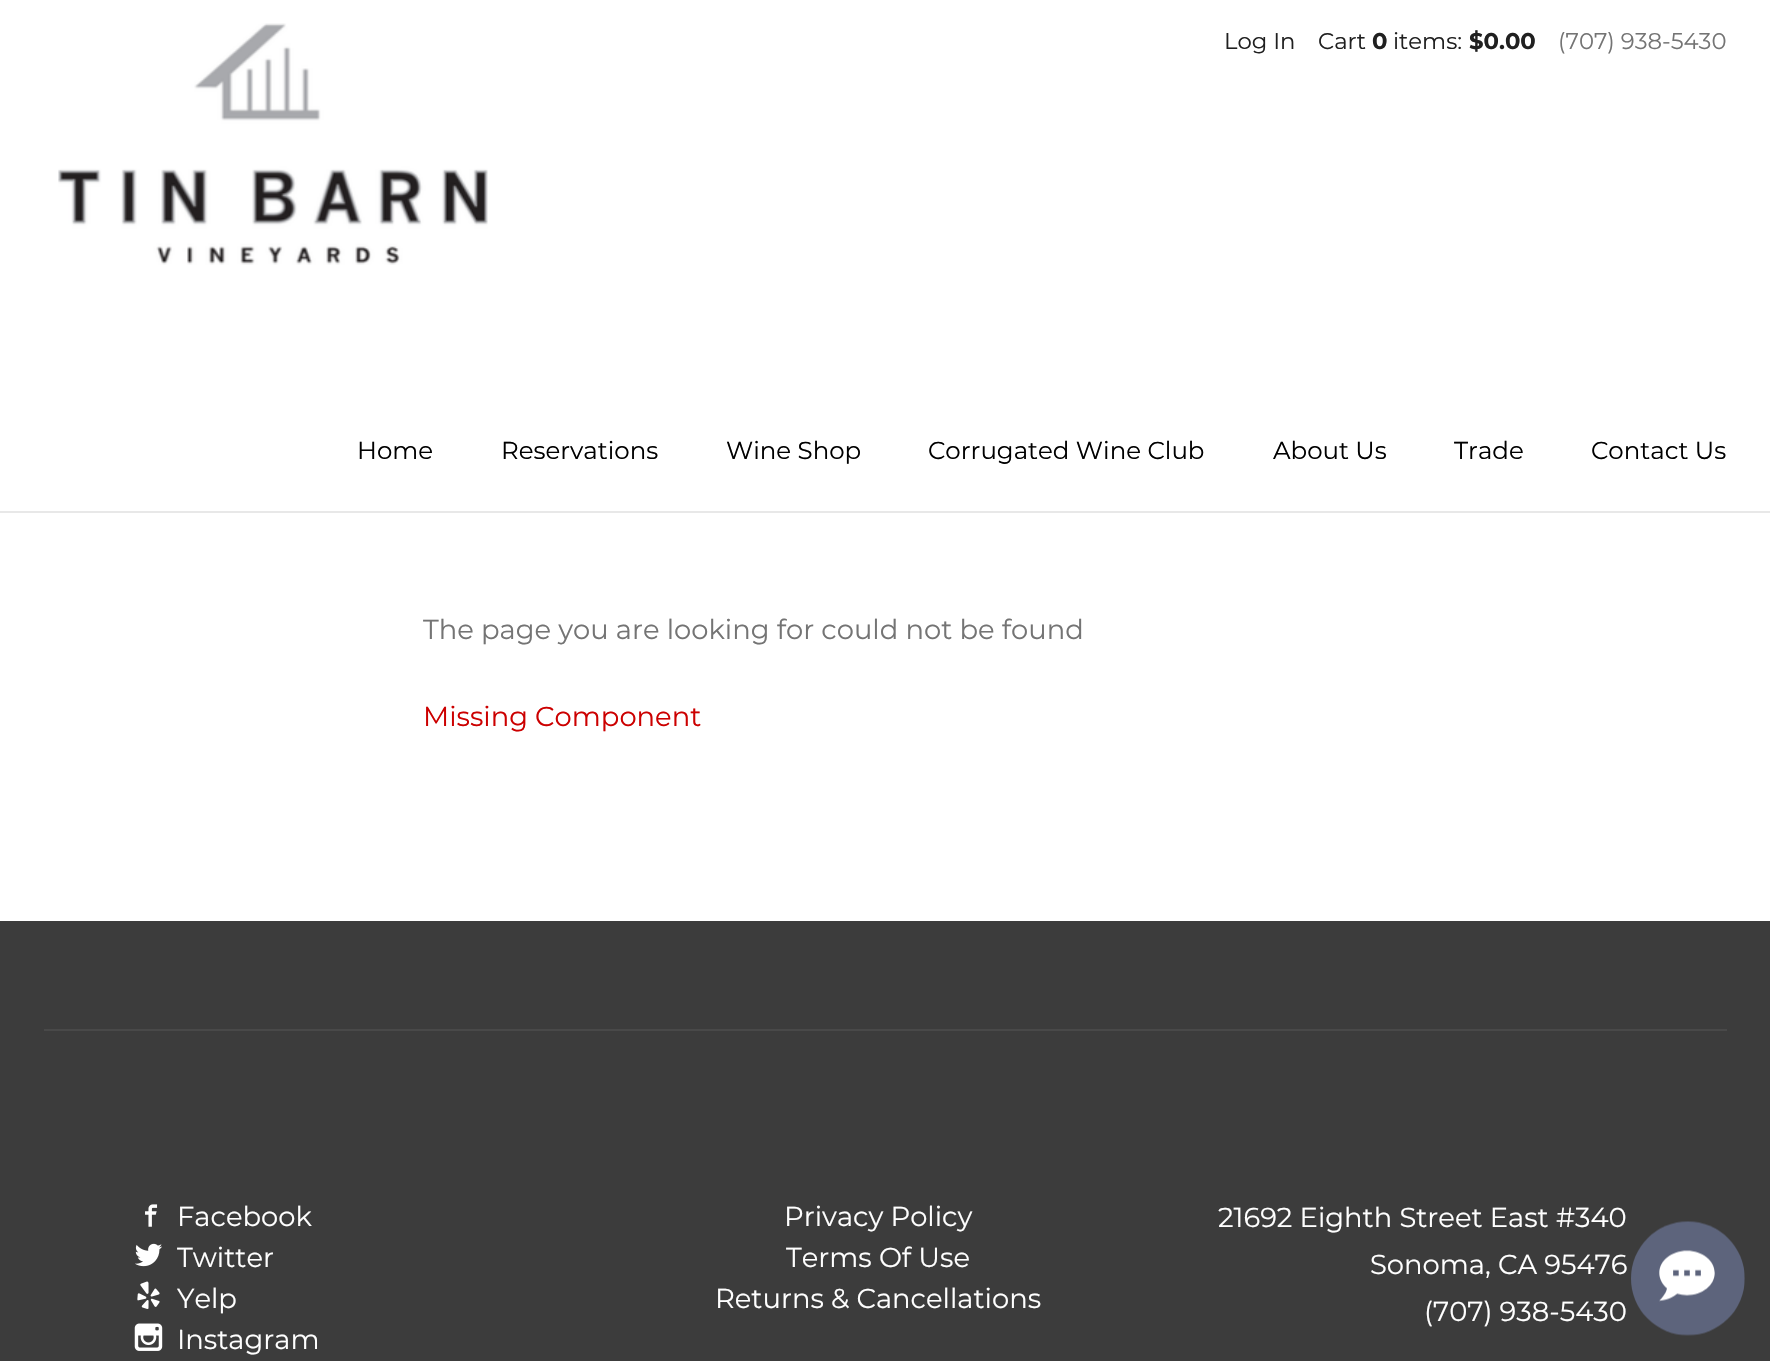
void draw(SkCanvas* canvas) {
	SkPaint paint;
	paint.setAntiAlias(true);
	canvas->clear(0xffffffff);
	paint.setColor(0xffe8e8e8);
	canvas->drawRect(SkRect::MakeXYWH(0, 511, 1770, 2), paint);
	canvas->drawImageRect(SkImages::DeferredFromEncodedData(SkData::MakeFromFileName("img1.png")), SkRect::MakeXYWH(58, 23, 430, 242), SkSamplingOptions());
	SkFont f1(fontMgr->matchFamilyStyle("Montserrat", SkFontStyle::Normal()), 22.75);
	f1.setSubpixel(true);
	paint.setColor(0xff202020);
	canvas->drawString("Log In", 1224, 49, f1, paint);
	canvas->drawString("Cart", 1318, 49, f1, paint);
	SkFont f2(fontMgr->matchFamilyStyle("Montserrat", SkFontStyle::Bold()), 22.75);
	f2.setSubpixel(true);
	canvas->drawString("0", 1372, 49, f2, paint);
	canvas->drawString("items:", 1393, 49, f1, paint);
	canvas->drawString("$0.00", 1469, 49, f2, paint);
	paint.setColor(0xff747474);
	canvas->drawString("(707) 938-5430", 1558, 49, f1, paint);
	SkFont f3(fontMgr->matchFamilyStyle("Montserrat", SkFontStyle::Normal()), 24.5);
	f3.setSubpixel(true);
	paint.setColor(0xff000000);
	canvas->drawString("Home", 357, 459, f3, paint);
	canvas->drawString("Reservations", 501, 459, f3, paint);
	canvas->drawString("Wine Shop", 726, 459, f3, paint);
	canvas->drawString("Corrugated Wine Club", 928, 459, f3, paint);
	canvas->drawString("About Us", 1273, 459, f3, paint);
	canvas->drawString("Trade", 1454, 459, f3, paint);
	canvas->drawString("Contact Us", 1591, 459, f3, paint);
	SkFont f4(fontMgr->matchFamilyStyle("Montserrat", SkFontStyle::Normal()), 27.4);
	f4.setSubpixel(true);
	paint.setColor(0xff747474);
	canvas->drawString("The page you are looking for could not be found", 423, 639, f4, paint);
	paint.setColor(0xffcc0000);
	canvas->drawString("Missing Component", 423, 726, f4, paint);
	paint.setColor(0xff3c3c3c);
	canvas->drawRect(SkRect::MakeXYWH(0, 921, 1770, 440), paint);
	paint.setColor(0xff494949);
	canvas->drawRect(SkRect::MakeXYWH(44, 1029, 1683, 2), paint);
	canvas->drawImageRect(SkImages::DeferredFromEncodedData(SkData::MakeFromFileName("img2.png")), SkRect::MakeXYWH(145, 1204, 13, 23), SkSamplingOptions());
	paint.setColor(0xffffffff);
	canvas->drawString("Facebook", 177, 1226, f4, paint);
	canvas->drawImageRect(SkImages::DeferredFromEncodedData(SkData::MakeFromFileName("img3.png")), SkRect::MakeXYWH(135, 1243, 27, 24), SkSamplingOptions());
	canvas->drawString("Twitter", 177, 1267, f4, paint);
	canvas->drawImageRect(SkImages::DeferredFromEncodedData(SkData::MakeFromFileName("img4.png")), SkRect::MakeXYWH(137, 1281, 23, 28), SkSamplingOptions());
	canvas->drawString("Yelp", 177, 1308, f4, paint);
	canvas->drawImageRect(SkImages::DeferredFromEncodedData(SkData::MakeFromFileName("img5.png")), SkRect::MakeXYWH(134, 1323, 29, 28), SkSamplingOptions());
	canvas->drawString("Instagram", 177, 1349, f4, paint);
	canvas->drawString("Privacy Policy", 784, 1226, f4, paint);
	canvas->drawString("Terms Of Use", 786, 1267, f4, paint);
	canvas->drawString("Returns & Cancellations", 715, 1308, f4, paint);
	canvas->drawString("21692 Eighth Street East #340", 1218, 1227, f4, paint);
	canvas->drawString("Sonoma, CA 95476", 1370, 1274, f4, paint);
	canvas->drawString("(707) 938-5430", 1424, 1321, f4, paint);
	canvas->drawImageRect(SkImages::DeferredFromEncodedData(SkData::MakeFromFileName("img6.png")), SkRect::MakeXYWH(1631, 1221, 114, 115), SkSamplingOptions());
}
